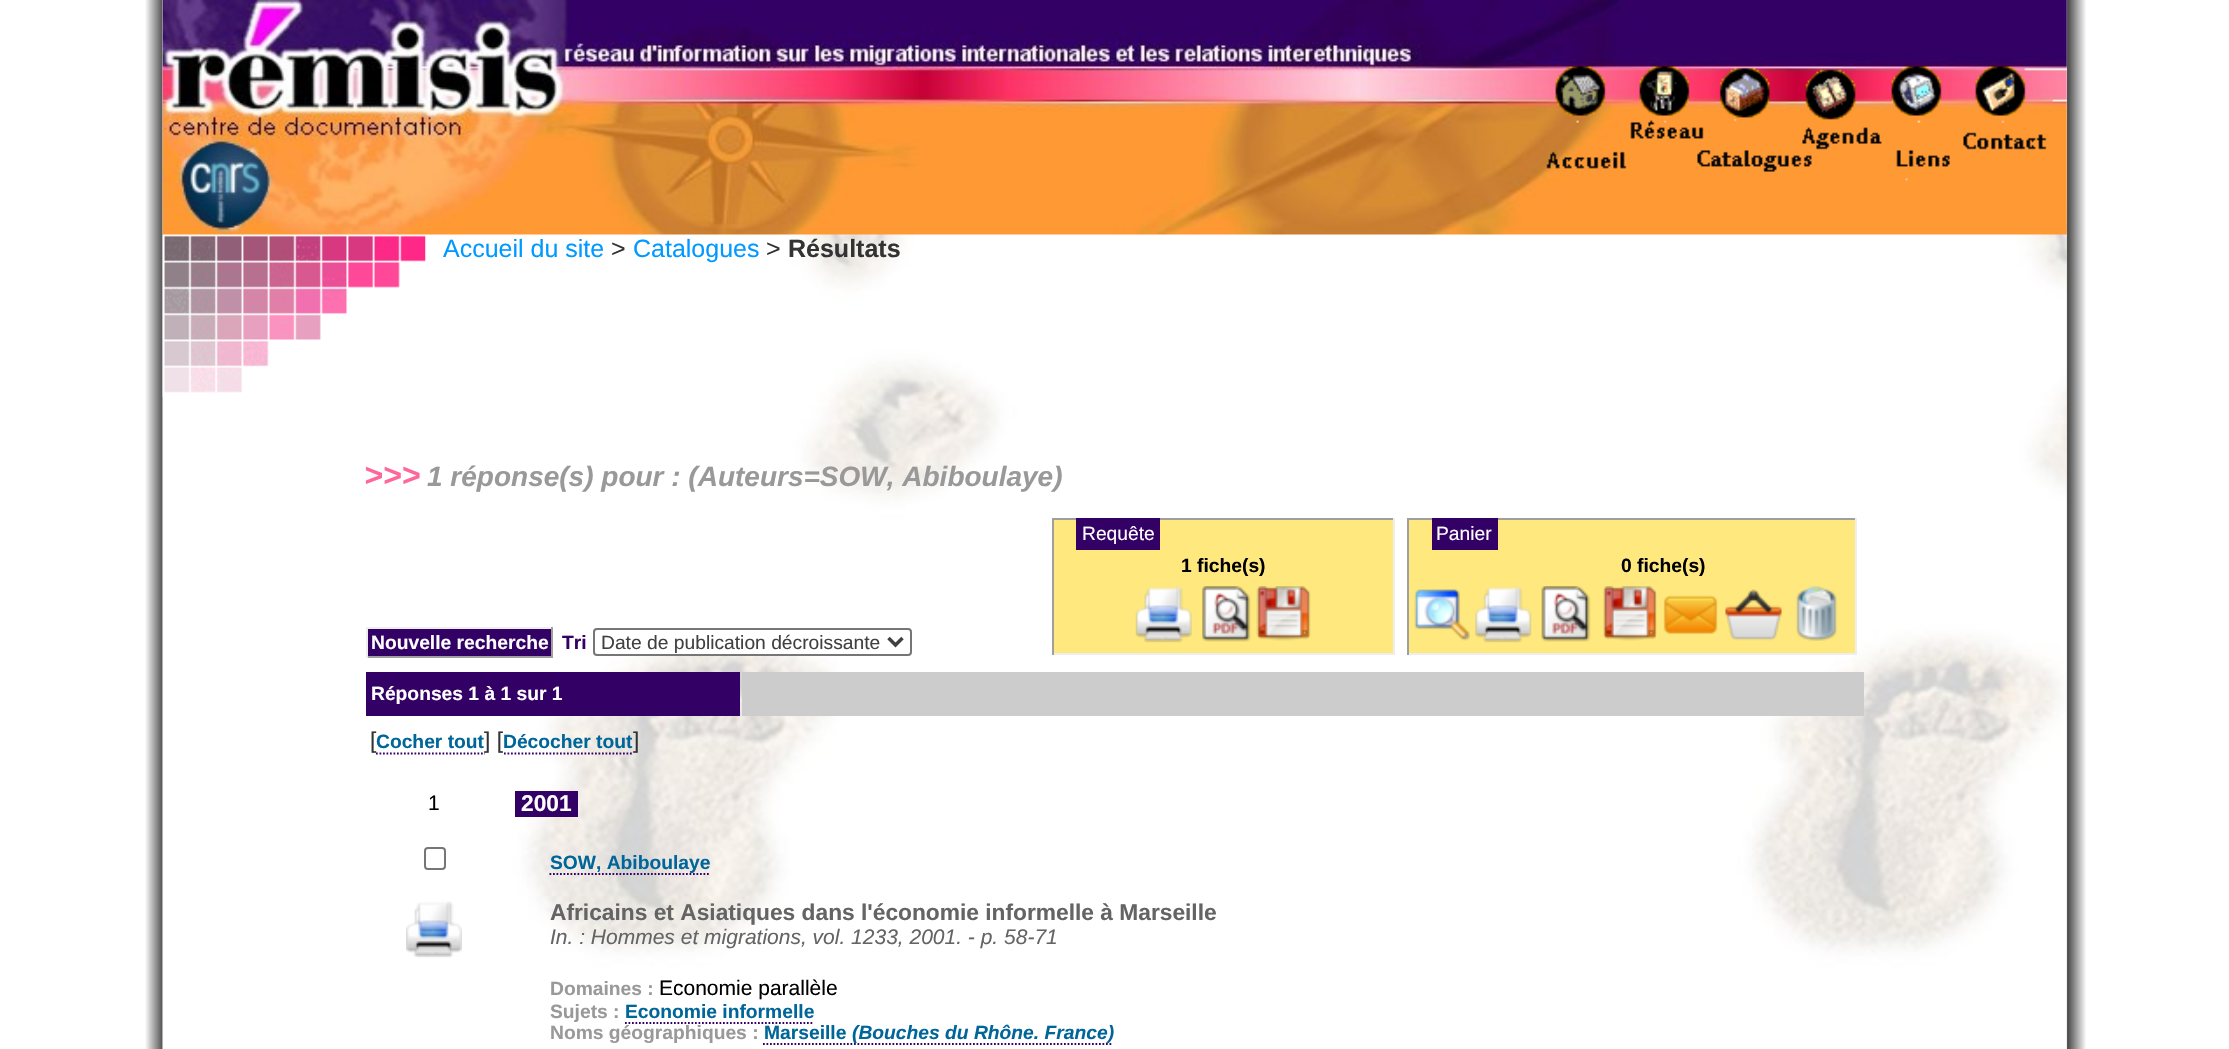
void draw(SkCanvas* canvas) {
	SkPaint paint;
	paint.setAntiAlias(true);
	auto svgPath = [&](const char* data, bool evenOdd = false) {
		SkPath result = *SkParsePath::FromSVGString(data);
		if (evenOdd) result.setFillType(SkPathFillType::kEvenOdd);
		return result;
	};
	canvas->clear(0xffffffff);
	canvas->drawImageRect(SkImages::DeferredFromEncodedData(SkData::MakeFromFileName("img1.png")), SkRect::MakeXYWH(145, 0, 1941, 1049), SkSamplingOptions());
	canvas->drawImageRect(SkImages::DeferredFromEncodedData(SkData::MakeFromFileName("img2.png")), SkRect::MakeXYWH(162, 0, 1905, 1049), SkSamplingOptions());
	canvas->drawImageRect(SkImages::DeferredFromEncodedData(SkData::MakeFromFileName("img4.png")), SkRect::MakeXYWH(162, 234, 264, 164), SkSamplingOptions());
	canvas->drawImageRect(SkImages::DeferredFromEncodedData(SkData::MakeFromFileName("img3.png")), SkRect::MakeXYWH(162, 0, 1905, 235), SkSamplingOptions());
	SkFont f1(fontMgr->matchFamilyStyle("Liberation Sans", SkFontStyle::Normal()), 25);
	f1.setSubpixel(true);
	paint.setColor(0xff0099ff);
	canvas->drawString("Accueil du site", 443, 257, f1, paint);
	paint.setColor(0xff333333);
	canvas->drawString(">", 611, 257, f1, paint);
	paint.setColor(0xff0099ff);
	canvas->drawString("Catalogues", 633, 257, f1, paint);
	paint.setColor(0xff333333);
	canvas->drawString(">", 766, 257, f1, paint);
	SkFont f2(fontMgr->matchFamilyStyle("Liberation Sans", SkFontStyle::Bold()), 25);
	f2.setSubpixel(true);
	canvas->drawString("Résultats", 788, 257, f2, paint);
	SkFont f3(fontMgr->matchFamilyStyle("Liberation Sans", SkFontStyle::BoldItalic()), 32);
	f3.setSubpixel(true);
	paint.setColor(0xffff6699);
	canvas->drawString(">>>", 364, 486, f3, paint);
	SkFont f4(fontMgr->matchFamilyStyle("Liberation Sans", SkFontStyle::BoldItalic()), 28);
	f4.setSubpixel(true);
	paint.setColor(0xff999999);
	canvas->drawString("1 réponse(s) pour : (Auteurs=SOW, Abiboulaye)", 427, 486, f4, paint);
	paint.setColor(0xffffe97f);
	canvas->drawRect(SkRect::MakeXYWH(1054, 520, 339, 133), paint);
	paint.setColor(0xff9f9f9f);
	canvas->drawRect(SkRect::MakeXYWH(1052, 518, 343, 2), paint);
	paint.setColor(0xffeeeeee);
	canvas->drawRect(SkRect::MakeXYWH(1393, 518, 2, 137), paint);
	canvas->drawRect(SkRect::MakeXYWH(1052, 653, 343, 2), paint);
	paint.setColor(0xff9f9f9f);
	canvas->drawRect(SkRect::MakeXYWH(1052, 518, 2, 137), paint);
	paint.setColor(0xff330065);
	canvas->drawRect(SkRect::MakeXYWH(1076, 518, 84, 32), paint);
	SkFont f5(fontMgr->matchFamilyStyle("Liberation Sans", SkFontStyle::Normal()), 19.25);
	f5.setSubpixel(true);
	paint.setColor(0xffffffff);
	canvas->drawString("Requête", 1082, 540, f5, paint);
	SkFont f6(fontMgr->matchFamilyStyle("Liberation Sans", SkFontStyle::Bold()), 19.25);
	f6.setSubpixel(true);
	paint.setColor(0xff000000);
	canvas->drawString("1 fiche(s)", 1181, 572, f6, paint);
	canvas->drawImageRect(SkImages::DeferredFromEncodedData(SkData::MakeFromFileName("img5.png")), SkRect::MakeXYWH(1135, 586, 57, 57), SkSamplingOptions());
	canvas->drawImageRect(SkImages::DeferredFromEncodedData(SkData::MakeFromFileName("img6.png")), SkRect::MakeXYWH(1202, 586, 49, 56), SkSamplingOptions());
	canvas->drawImageRect(SkImages::DeferredFromEncodedData(SkData::MakeFromFileName("img7.png")), SkRect::MakeXYWH(1256, 586, 55, 55), SkSamplingOptions());
	paint.setColor(0xffffe97f);
	canvas->drawRect(SkRect::MakeXYWH(1409, 520, 446, 133), paint);
	paint.setColor(0xff9f9f9f);
	canvas->drawRect(SkRect::MakeXYWH(1407, 518, 450, 2), paint);
	paint.setColor(0xffeeeeee);
	canvas->drawRect(SkRect::MakeXYWH(1855, 518, 2, 137), paint);
	canvas->drawRect(SkRect::MakeXYWH(1407, 653, 450, 2), paint);
	paint.setColor(0xff9f9f9f);
	canvas->drawRect(SkRect::MakeXYWH(1407, 518, 2, 137), paint);
	paint.setColor(0xff330065);
	canvas->drawRect(SkRect::MakeXYWH(1432, 518, 66, 32), paint);
	paint.setColor(0xffffffff);
	canvas->drawString("Panier", 1436, 540, f5, paint);
	paint.setColor(0xff000000);
	canvas->drawString("0 fiche(s)", 1621, 572, f6, paint);
	canvas->drawImageRect(SkImages::DeferredFromEncodedData(SkData::MakeFromFileName("img8.png")), SkRect::MakeXYWH(1414, 589, 56, 52), SkSamplingOptions());
	canvas->drawImageRect(SkImages::DeferredFromEncodedData(SkData::MakeFromFileName("img9.png")), SkRect::MakeXYWH(1475, 586, 57, 57), SkSamplingOptions());
	canvas->drawImageRect(SkImages::DeferredFromEncodedData(SkData::MakeFromFileName("img10.png")), SkRect::MakeXYWH(1541, 586, 50, 56), SkSamplingOptions());
	canvas->drawImageRect(SkImages::DeferredFromEncodedData(SkData::MakeFromFileName("img11.png")), SkRect::MakeXYWH(1603, 586, 54, 55), SkSamplingOptions());
	canvas->drawImageRect(SkImages::DeferredFromEncodedData(SkData::MakeFromFileName("img12.png")), SkRect::MakeXYWH(1663, 595, 55, 39), SkSamplingOptions());
	canvas->drawImageRect(SkImages::DeferredFromEncodedData(SkData::MakeFromFileName("img13.png")), SkRect::MakeXYWH(1725, 589, 57, 52), SkSamplingOptions());
	canvas->drawImageRect(SkImages::DeferredFromEncodedData(SkData::MakeFromFileName("img14.png")), SkRect::MakeXYWH(1795, 586, 43, 55), SkSamplingOptions());
	paint.setColor(0xff330065);
	canvas->drawRect(SkRect::MakeXYWH(368, 629, 183, 27), paint);
	paint.setColor(0xffeeeeee);
	canvas->drawRect(SkRect::MakeXYWH(366, 627, 187, 2), paint);
	paint.setColor(0xff9f9f9f);
	canvas->drawRect(SkRect::MakeXYWH(551, 627, 2, 31), paint);
	canvas->drawRect(SkRect::MakeXYWH(366, 656, 187, 2), paint);
	paint.setColor(0xffeeeeee);
	canvas->drawRect(SkRect::MakeXYWH(366, 627, 2, 31), paint);
	paint.setColor(0xffffffff);
	canvas->drawString("Nouvelle recherche", 371, 649, f6, paint);
	paint.setColor(0xff330065);
	canvas->drawString("Tri", 562, 649, f6, paint);
	paint.setColor(0xffffffff);
	canvas->drawRoundRect(SkRect::MakeXYWH(594, 629, 317, 26), 3, 3, paint);
	paint.setStroke(true);
	paint.setStrokeWidth(2);
	paint.setColor(0xff767676);
	canvas->drawRoundRect(SkRect::MakeXYWH(594, 629, 317, 26), 3, 3, paint);
	paint.setStrokeWidth(3.5);
	paint.setColor(0xff404040);
	canvas->drawPath(svgPath("M888.5 638L895.5 645L902.5 638"), paint);
	paint.setStroke(false);
	canvas->drawString("Date de publication décroissante", 601, 649, f5, paint);
	paint.setColor(0xff330065);
	canvas->drawRect(SkRect::MakeXYWH(366, 672, 374, 44), paint);
	paint.setColor(0xffffffff);
	canvas->drawString("Réponses 1 à 1 sur 1", 371, 700, f6, paint);
	paint.setColor(0xffcccccc);
	canvas->drawRect(SkRect::MakeXYWH(742, 672, 1122, 44), paint);
	SkFont f7(fontMgr->matchFamilyStyle("Liberation Sans", SkFontStyle::Normal()), 22.75);
	f7.setSubpixel(true);
	paint.setColor(0xff333333);
	canvas->drawString("[", 370, 748, f7, paint);
	paint.setColor(0xff006699);
	canvas->drawString("Cocher tout", 376, 748, f6, paint);
	paint.setStroke(true);
	paint.setStrokeWidth(1.8);
	paint.setColor(0xff330065);
	paint.setPathEffect(SkDashPathEffect::Make({{1.75f, 1.75f}}, 0));
	canvas->drawPath(svgPath("M376 753.5H485"), paint);
	paint.setPathEffect(nullptr);
	paint.setStroke(false);
	paint.setColor(0xff333333);
	canvas->drawString("] [", 484, 748, f7, paint);
	paint.setColor(0xff006699);
	canvas->drawString("Décocher tout", 503, 748, f6, paint);
	paint.setStroke(true);
	paint.setColor(0xff330065);
	paint.setPathEffect(SkDashPathEffect::Make({{1.75f, 1.75f}}, 0));
	canvas->drawPath(svgPath("M504 753.5H633.5"), paint);
	paint.setPathEffect(nullptr);
	paint.setStroke(false);
	paint.setColor(0xff333333);
	canvas->drawString("]", 633, 748, f7, paint);
	SkFont f8(fontMgr->matchFamilyStyle("Liberation Sans", SkFontStyle::Normal()), 21);
	f8.setSubpixel(true);
	paint.setColor(0xff000000);
	canvas->drawString("1", 428, 810, f8, paint);
	paint.setStroke(true);
	paint.setStrokeWidth(2);
	paint.setColor(0xff767676);
	canvas->drawRoundRect(SkRect::MakeXYWH(425, 848, 20, 21), 3, 3, paint);
	canvas->drawImageRect(SkImages::DeferredFromEncodedData(SkData::MakeFromFileName("img15.png")), SkRect::MakeXYWH(406, 901, 56, 57), SkSamplingOptions());
	paint.setStroke(false);
	paint.setColor(0xff330065);
	canvas->drawRect(SkRect::MakeXYWH(515, 791, 63, 26), paint);
	SkFont f9(fontMgr->matchFamilyStyle("Liberation Sans", SkFontStyle::Bold()), 22.75);
	f9.setSubpixel(true);
	paint.setColor(0xffffffff);
	canvas->drawString("2001", 521, 811, f9, paint);
	paint.setColor(0xff006699);
	canvas->drawString("SOW, Abiboulaye", 550, 869, f6, paint);
	paint.setStroke(true);
	paint.setStrokeWidth(1.8);
	paint.setColor(0xff330065);
	paint.setPathEffect(SkDashPathEffect::Make({{1.75f, 1.75f}}, 0));
	canvas->drawPath(svgPath("M549.5 874H710.5"), paint);
	paint.setPathEffect(nullptr);
	paint.setStroke(false);
	paint.setColor(0xff646464);
	canvas->drawString("Africains et Asiatiques dans l'économie informelle à Marseille", 550, 920, f9, paint);
	SkFont f10(fontMgr->matchFamilyStyle("Liberation Sans", SkFontStyle::Italic()), 21);
	f10.setSubpixel(true);
	canvas->drawString("In. : Hommes et migrations, vol. 1233, 2001. - p. 58-71", 550, 944, f10, paint);
	paint.setColor(0xff999999);
	canvas->drawString("Domaines :", 550, 995, f6, paint);
	paint.setColor(0xff000000);
	canvas->drawString("Economie parallèle", 659, 995, f8, paint);
	paint.setColor(0xff999999);
	canvas->drawString("Sujets :", 550, 1018, f6, paint);
	paint.setColor(0xff006699);
	canvas->drawString("Economie informelle", 625, 1018, f6, paint);
	paint.setStroke(true);
	paint.setColor(0xff330065);
	paint.setPathEffect(SkDashPathEffect::Make({{1.75f, 1.75f}}, 0));
	canvas->drawPath(svgPath("M625 1023H814"), paint);
	paint.setPathEffect(nullptr);
	paint.setStroke(false);
	paint.setColor(0xff999999);
	canvas->drawString("Noms géographiques :", 550, 1039, f6, paint);
	paint.setColor(0xff006699);
	canvas->drawString("Marseille", 764, 1039, f6, paint);
	paint.setStroke(true);
	paint.setColor(0xff330065);
	paint.setPathEffect(SkDashPathEffect::Make({{1.75f, 1.75f}}, 0));
	canvas->drawPath(svgPath("M763 1044H847"), paint);
	paint.setPathEffect(nullptr);
	SkFont f11(fontMgr->matchFamilyStyle("Liberation Sans", SkFontStyle::BoldItalic()), 19.25);
	f11.setSubpixel(true);
	paint.setStroke(false);
	paint.setColor(0xff006699);
	canvas->drawString("(Bouches du Rhône. France)", 852, 1039, f11, paint);
	paint.setStroke(true);
	paint.setColor(0xff330065);
	paint.setPathEffect(SkDashPathEffect::Make({{1.75f, 1.75f}}, 0));
	canvas->drawPath(svgPath("M847 1044H1113"), paint);
	paint.setPathEffect(nullptr);
}
